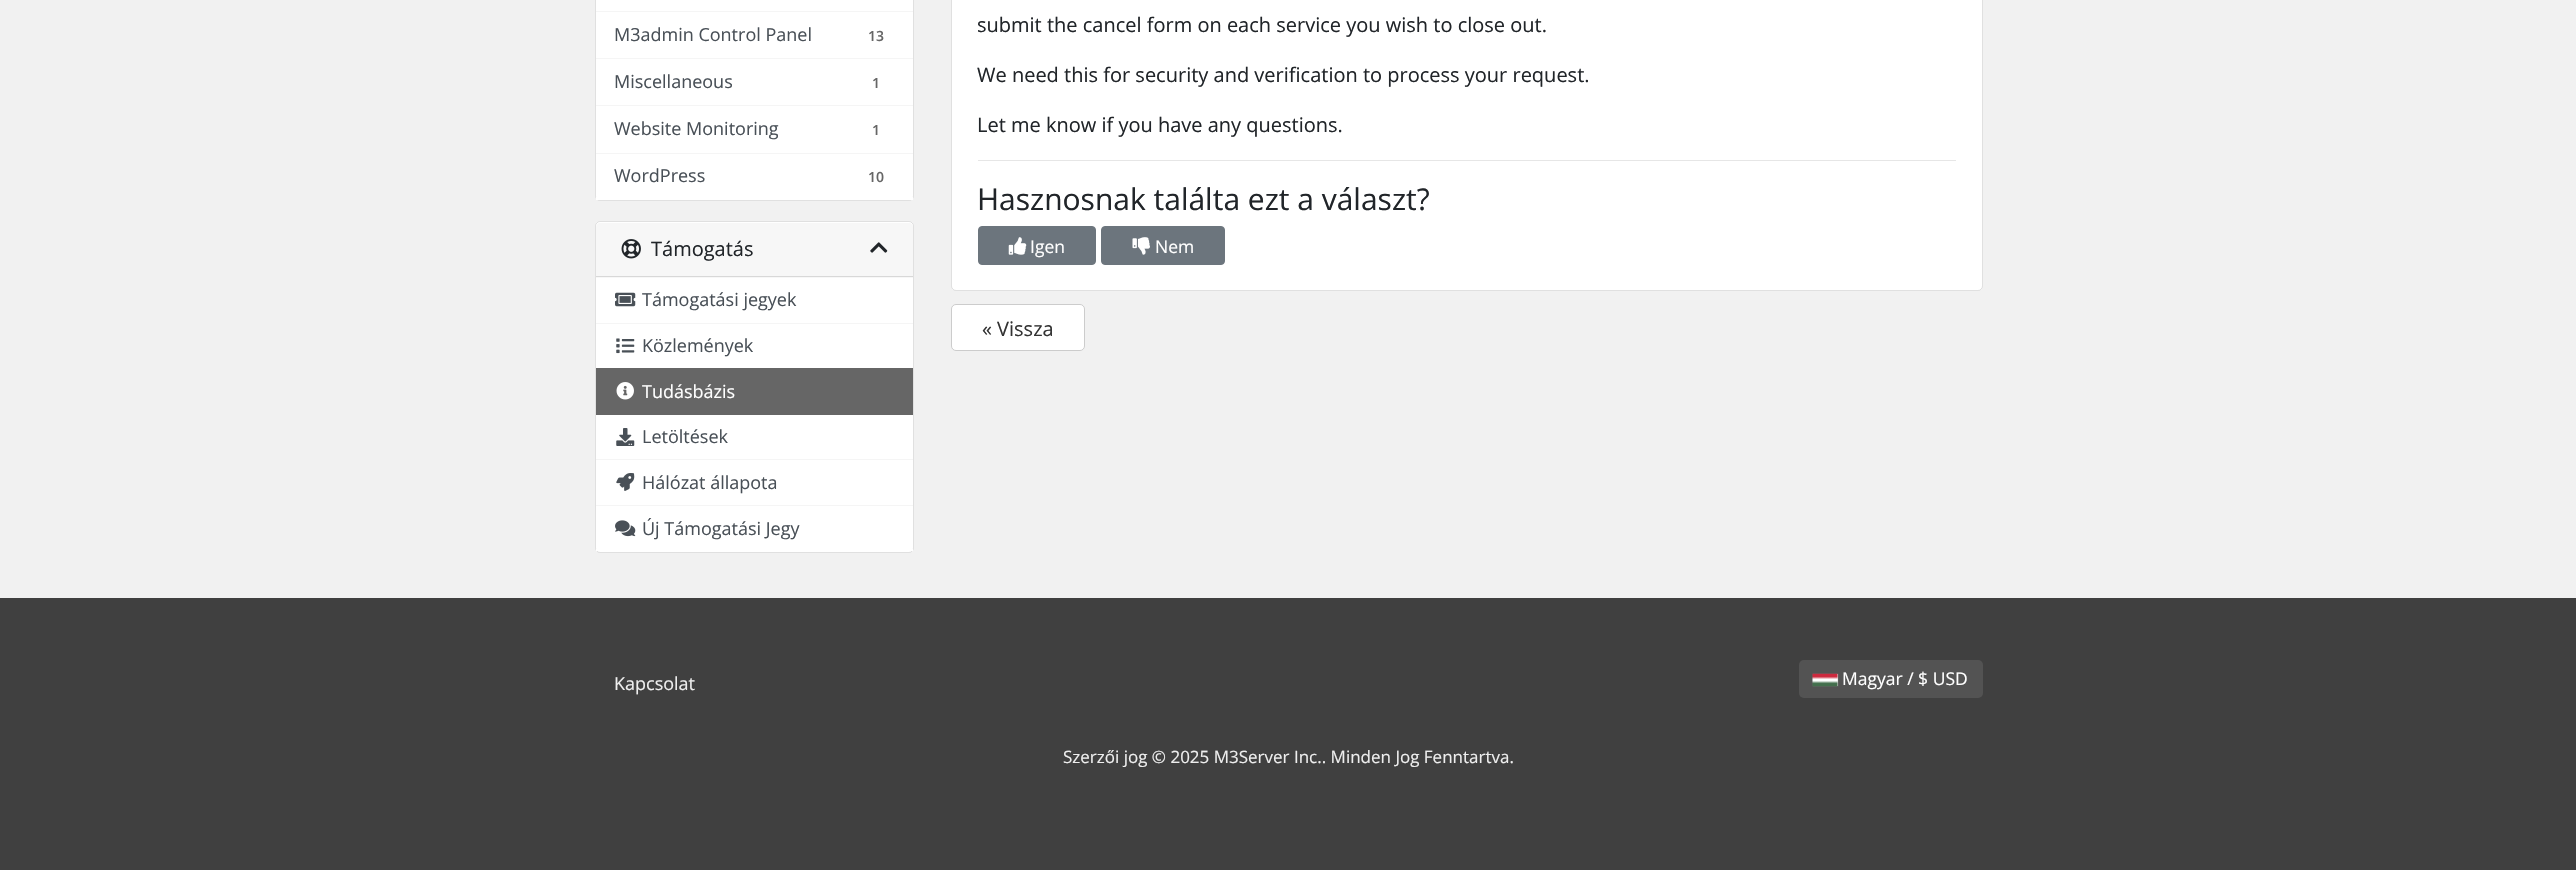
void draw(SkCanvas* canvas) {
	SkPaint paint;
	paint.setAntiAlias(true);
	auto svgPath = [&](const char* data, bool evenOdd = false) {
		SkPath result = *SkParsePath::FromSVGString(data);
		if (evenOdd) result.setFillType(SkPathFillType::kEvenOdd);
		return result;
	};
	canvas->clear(0xfff1f1f1);
	paint.setColor(0xffffffff);
	canvas->drawRoundRect(SkRect::MakeXYWH(595, -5, 319, 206), 5, 5, paint);
	paint.setStroke(true);
	paint.setStrokeWidth(1);
	paint.setColor(0x1f000000);
	canvas->drawRoundRect(SkRect::MakeXYWH(595.5, -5.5, 318, 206), 4.5, 4.5, paint);
	paint.setStroke(false);
	paint.setColor(0xfff5f5f5);
	canvas->drawRect(SkRect::MakeXYWH(596, 11, 317, 1), paint);
	canvas->drawRect(SkRect::MakeXYWH(596, 58, 317, 1), paint);
	SkFont f1(fontMgr->matchFamilyStyle("Open Sans", SkFontStyle::Normal()), 18);
	f1.setSubpixel(true);
	paint.setColor(0xff495057);
	canvas->drawString("M3admin Control Panel", 614, 41, f1, paint);
	SkFont f2(fontMgr->matchFamilyStyle("Open Sans", SkFontStyle(600, SkFontStyle::kNormal_Width, SkFontStyle::kUpright_Slant)), 14);
	f2.setSubpixel(true);
	paint.setColor(0xff666666);
	canvas->drawString("13", 868, 41, f2, paint);
	paint.setColor(0xfff5f5f5);
	canvas->drawRect(SkRect::MakeXYWH(596, 105, 317, 1), paint);
	paint.setColor(0xff495057);
	canvas->drawString("Miscellaneous", 614, 88, f1, paint);
	paint.setColor(0xff666666);
	canvas->drawString("1", 872, 88, f2, paint);
	paint.setColor(0xfff5f5f5);
	canvas->drawRect(SkRect::MakeXYWH(596, 153, 317, 1), paint);
	paint.setColor(0xff495057);
	canvas->drawString("Website Monitoring", 614, 135, f1, paint);
	paint.setColor(0xff666666);
	canvas->drawString("1", 872, 135, f2, paint);
	paint.setColor(0xffffffff);
	canvas->drawRect(SkRect::MakeXYWH(596, 197, 317, 3), paint);
	paint.setColor(0xff495057);
	canvas->drawString("WordPress", 614, 182, f1, paint);
	paint.setColor(0xff666666);
	canvas->drawString("10", 868, 182, f2, paint);
	paint.setColor(0xffffffff);
	canvas->drawRoundRect(SkRect::MakeXYWH(595, 221, 319, 332), 5, 5, paint);
	paint.setStroke(true);
	paint.setColor(0x1f000000);
	canvas->drawRoundRect(SkRect::MakeXYWH(595.5, 221.5, 318, 331), 4.5, 4.5, paint);
	paint.setStroke(false);
	paint.setColor(0xfff7f7f7);
	canvas->drawPath(svgPath("M600 223H909C911 223 913 225 913 227V278H596V227C596 225 598 223 600 223Z"), paint);
	paint.setColor(0xffd8d8d8);
	canvas->drawRect(SkRect::MakeXYWH(596, 276, 317, 1), paint);
	canvas->drawImageRect(SkImages::DeferredFromEncodedData(SkData::MakeFromFileName("img1.png")), SkRect::MakeXYWH(621, 239, 20, 20), SkSamplingOptions());
	SkFont f3(fontMgr->matchFamilyStyle("Open Sans", SkFontStyle::Normal()), 20);
	f3.setSubpixel(true);
	paint.setColor(0xff212529);
	canvas->drawString("Támogatás", 651, 256, f3, paint);
	canvas->drawImageRect(SkImages::DeferredFromEncodedData(SkData::MakeFromFileName("img2.png")), SkRect::MakeXYWH(870, 242, 18, 11), SkSamplingOptions());
	paint.setColor(0xfff5f5f5);
	canvas->drawRect(SkRect::MakeXYWH(596, 323, 317, 1), paint);
	canvas->drawImageRect(SkImages::DeferredFromEncodedData(SkData::MakeFromFileName("img3.png")), SkRect::MakeXYWH(615, 292, 21, 15), SkSamplingOptions());
	paint.setColor(0xff495057);
	canvas->drawString("Támogatási jegyek", 642, 306, f1, paint);
	canvas->drawImageRect(SkImages::DeferredFromEncodedData(SkData::MakeFromFileName("img4.png")), SkRect::MakeXYWH(616, 338, 19, 16), SkSamplingOptions());
	canvas->drawString("Közlemények", 642, 352, f1, paint);
	paint.setColor(0xff666666);
	canvas->drawRect(SkRect::MakeXYWH(596, 368, 317, 47), paint);
	canvas->drawImageRect(SkImages::DeferredFromEncodedData(SkData::MakeFromFileName("img5.png")), SkRect::MakeXYWH(616, 382, 18, 18), SkSamplingOptions());
	paint.setColor(0xffffffff);
	canvas->drawString("Tudásbázis", 642, 398, f1, paint);
	paint.setColor(0xfff5f5f5);
	canvas->drawRect(SkRect::MakeXYWH(596, 459, 317, 1), paint);
	canvas->drawImageRect(SkImages::DeferredFromEncodedData(SkData::MakeFromFileName("img6.png")), SkRect::MakeXYWH(616, 428, 19, 18), SkSamplingOptions());
	paint.setColor(0xff495057);
	canvas->drawString("Letöltések", 642, 443, f1, paint);
	paint.setColor(0xfff5f5f5);
	canvas->drawRect(SkRect::MakeXYWH(596, 505, 317, 1), paint);
	canvas->drawImageRect(SkImages::DeferredFromEncodedData(SkData::MakeFromFileName("img7.png")), SkRect::MakeXYWH(616, 473, 19, 18), SkSamplingOptions());
	paint.setColor(0xff495057);
	canvas->drawString("Hálózat állapota", 642, 489, f1, paint);
	paint.setColor(0xffffffff);
	canvas->drawRect(SkRect::MakeXYWH(596, 549, 317, 2), paint);
	canvas->drawImageRect(SkImages::DeferredFromEncodedData(SkData::MakeFromFileName("img8.png")), SkRect::MakeXYWH(615, 520, 21, 17), SkSamplingOptions());
	paint.setColor(0xff495057);
	canvas->drawString("Új Támogatási Jegy", 642, 535, f1, paint);
	paint.setColor(0xffffffff);
	canvas->drawRoundRect(SkRect::MakeXYWH(951, -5, 1032, 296), 5, 5, paint);
	paint.setStroke(true);
	paint.setColor(0x1f000000);
	canvas->drawRoundRect(SkRect::MakeXYWH(951.5, -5.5, 1031, 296), 4.5, 4.5, paint);
	paint.setStroke(false);
	paint.setColor(0xff212529);
	canvas->drawString("submit the cancel form on each service you wish to close out.", 977, 32, f3, paint);
	canvas->drawString("We need this for security and verification to process your request.", 977, 82, f3, paint);
	canvas->drawString("Let me know if you have any questions.", 977, 132, f3, paint);
	paint.setColor(0xffe6e6e6);
	canvas->drawRect(SkRect::MakeXYWH(978, 160, 978, 1), paint);
	SkFont f4(fontMgr->matchFamilyStyle("Open Sans", SkFontStyle::Normal()), 30);
	f4.setSubpixel(true);
	paint.setColor(0xff212529);
	canvas->drawString("Hasznosnak találta ezt a választ?", 977, 210, f4, paint);
	paint.setColor(0xff6c757d);
	canvas->drawRoundRect(SkRect::MakeXYWH(978.5, 226.5, 117, 38), 3.5, 3.5, paint);
	paint.setStroke(true);
	canvas->drawRoundRect(SkRect::MakeXYWH(978.5, 226.5, 117, 38), 3.5, 3.5, paint);
	canvas->drawImageRect(SkImages::DeferredFromEncodedData(SkData::MakeFromFileName("img9.png")), SkRect::MakeXYWH(1008, 237, 19, 18), SkSamplingOptions());
	SkFont f5(fontMgr->matchFamilyStyle("Open Sans", SkFontStyle::Normal()), 17.5);
	f5.setSubpixel(true);
	paint.setStroke(false);
	paint.setColor(0xffffffff);
	canvas->drawString("Igen", 1030, 253, f5, paint);
	paint.setColor(0xff6c757d);
	canvas->drawRoundRect(SkRect::MakeXYWH(1101.5, 226.5, 123, 38), 3.5, 3.5, paint);
	paint.setStroke(true);
	canvas->drawRoundRect(SkRect::MakeXYWH(1101.5, 226.5, 123, 38), 3.5, 3.5, paint);
	canvas->drawImageRect(SkImages::DeferredFromEncodedData(SkData::MakeFromFileName("img10.png")), SkRect::MakeXYWH(1132, 237, 18, 18), SkSamplingOptions());
	paint.setStroke(false);
	paint.setColor(0xffffffff);
	canvas->drawString("Nem", 1155, 253, f5, paint);
	canvas->drawRoundRect(SkRect::MakeXYWH(951.5, 304.5, 133, 46), 4.5, 4.5, paint);
	paint.setStroke(true);
	paint.setColor(0xffcccccc);
	canvas->drawRoundRect(SkRect::MakeXYWH(951.5, 304.5, 133, 46), 4.5, 4.5, paint);
	paint.setStroke(false);
	paint.setColor(0xff333333);
	canvas->drawString("« Vissza", 982, 336, f3, paint);
	paint.setColor(0xff404040);
	canvas->drawRect(SkRect::MakeXYWH(0, 598, 2576, 272), paint);
	paint.setColor(0xffeeeeee);
	canvas->drawString("Kapcsolat", 614, 690, f1, paint);
	paint.setColor(0xff535353);
	canvas->drawRoundRect(SkRect::MakeXYWH(1799, 660, 184, 38), 5, 5, paint);
	paint.setColor(0xff888888);
	paint.setMaskFilter(SkMaskFilter::MakeBlur(kNormal_SkBlurStyle, 0.5));
	canvas->drawRect(SkRect::MakeXYWH(1813, 674, 25, 12), paint);
	paint.setMaskFilter(nullptr);
	paint.setColor(0xffdbdbdb);
	canvas->drawRect(SkRect::MakeXYWH(1837, 674, 1, 12), paint);
	canvas->drawImageRect(SkImages::DeferredFromEncodedData(SkData::MakeFromFileName("img11.png")), SkRect::MakeXYWH(1812, 673, 26, 14), SkSamplingOptions());
	paint.setColor(0xffffffff);
	canvas->drawString("Magyar / $ USD", 1842, 685, f5, paint);
	SkFont f6(fontMgr->matchFamilyStyle("Open Sans", SkFontStyle::Normal()), 17);
	f6.setSubpixel(true);
	paint.setColor(0xffeeeeee);
	canvas->drawString("Szerzői jog © 2025 M3Server Inc.. Minden Jog Fenntartva.", 1063, 763, f6, paint);
}
